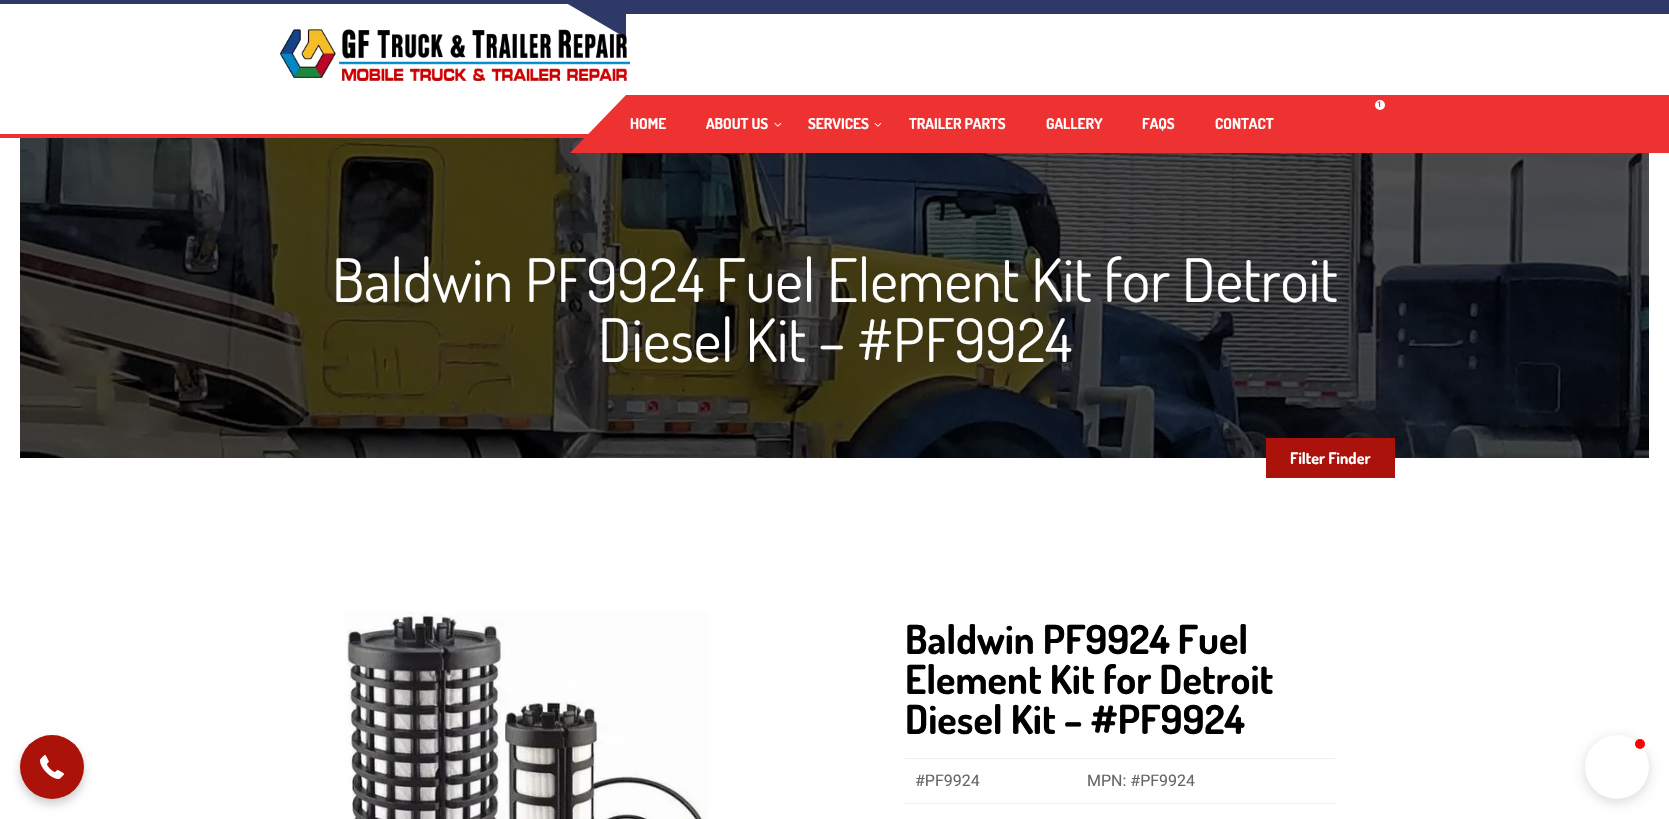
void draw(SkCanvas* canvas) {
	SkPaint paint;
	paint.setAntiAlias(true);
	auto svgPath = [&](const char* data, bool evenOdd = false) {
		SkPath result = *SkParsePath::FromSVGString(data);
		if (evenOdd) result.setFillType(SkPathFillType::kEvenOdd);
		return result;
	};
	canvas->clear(0xffffffff);
	paint.setColor(0xff2f3967);
	canvas->drawRect(SkRect::MakeXYWH(0, 0, 1669, 4), paint);
	canvas->drawPath(svgPath("M626 0V38L561 0Z"), paint);
	canvas->drawRect(SkRect::MakeXYWH(626, 4, 1043, 10), paint);
	canvas->drawImageRect(SkImages::DeferredFromEncodedData(SkData::MakeFromFileName("img1.png")), SkRect::MakeXYWH(280, 29, 350, 52), SkSamplingOptions());
	paint.setColor(0xffee3131);
	canvas->drawRect(SkRect::MakeXYWH(0, 134, 589, 4), paint);
	canvas->drawImageRect(SkImages::DeferredFromEncodedData(SkData::MakeFromFileName("img4.png")), SkRect::MakeXYWH(20, 138, 1629, 320), SkSamplingOptions());
	canvas->drawPath(svgPath("M626 95V153H570Z"), paint);
	canvas->drawRect(SkRect::MakeXYWH(626, 95, 1043, 58), paint);
	paint.setColor(0xffffffff);
	canvas->drawCircle(1380, 105, 5, paint);
	SkFont f1(fontMgr->matchFamilyStyle("Roboto", SkFontStyle::Bold()), 8);
	f1.setSubpixel(true);
	paint.setColor(0xffee3131);
	canvas->drawString("1", 1377, 107, f1, paint);
	SkFont f2(fontMgr->matchFamilyStyle("Dosis", SkFontStyle::Bold()), 15);
	f2.setSubpixel(true);
	paint.setColor(0xffffffff);
	canvas->drawString("HOME", 630, 129, f2, paint);
	canvas->drawString("ABOUT US", 706, 129, f2, paint);
	canvas->drawImageRect(SkImages::DeferredFromEncodedData(SkData::MakeFromFileName("img2.png")), SkRect::MakeXYWH(774, 122, 8, 5), SkSamplingOptions());
	canvas->drawString("SERVICES", 808, 129, f2, paint);
	canvas->drawImageRect(SkImages::DeferredFromEncodedData(SkData::MakeFromFileName("img2.png")), SkRect::MakeXYWH(874, 122, 8, 5), SkSamplingOptions());
	canvas->drawString("TRAILER PARTS", 909, 129, f2, paint);
	canvas->drawString("GALLERY", 1046, 129, f2, paint);
	canvas->drawString("FAQS", 1142, 129, f2, paint);
	canvas->drawString("CONTACT", 1215, 129, f2, paint);
	paint.setColor(0x33000000);
	paint.setMaskFilter(SkMaskFilter::MakeBlur(kNormal_SkBlurStyle, 5));
	canvas->drawRoundRect(SkRect::MakeXYWH(20, 740, 64, 64), 32, 32, paint);
	paint.setMaskFilter(nullptr);
	paint.setColor(0xffab130a);
	canvas->drawCircle(52, 767, 32, paint);
	canvas->drawImageRect(SkImages::DeferredFromEncodedData(SkData::MakeFromFileName("img3.png")), SkRect::MakeXYWH(40, 755, 24, 24), SkSamplingOptions());
	SkFont f3(fontMgr->matchFamilyStyle("Dosis", SkFontStyle::Normal()), 60);
	f3.setSubpixel(true);
	paint.setColor(0xffffffff);
	canvas->drawString("Baldwin PF9924 Fuel Element Kit for Detroit", 332, 302, f3, paint);
	canvas->drawString("Diesel Kit – #PF9924", 598, 362, f3, paint);
	paint.setColor(0xffab120b);
	canvas->drawRect(SkRect::MakeXYWH(1266, 438, 129, 40), paint);
	SkFont f4(fontMgr->matchFamilyStyle("Dosis", SkFontStyle::Bold()), 16);
	f4.setSubpixel(true);
	paint.setColor(0xffffffff);
	canvas->drawString("Filter Finder", 1290, 464, f4, paint);
	canvas->drawImageRect(SkImages::DeferredFromEncodedData(SkData::MakeFromFileName("img5.png")), SkRect::MakeXYWH(345, 611, 364, 208), SkSamplingOptions());
	SkFont f5(fontMgr->matchFamilyStyle("Dosis", SkFontStyle::Bold()), 40);
	f5.setSubpixel(true);
	paint.setColor(0xff000000);
	canvas->drawString("Baldwin PF9924 Fuel", 905, 654, f5, paint);
	canvas->drawString("Element Kit for Detroit", 905, 694, f5, paint);
	canvas->drawString("Diesel Kit – #PF9924", 905, 734, f5, paint);
	paint.setColor(0xffeeeeee);
	canvas->drawRect(SkRect::MakeXYWH(905, 758, 430, 1), paint);
	SkFont f6(fontMgr->matchFamilyStyle("Roboto", SkFontStyle::Normal()), 16);
	f6.setSubpixel(true);
	paint.setColor(0xff666666);
	canvas->drawString("#PF9924", 915, 786, f6, paint);
	canvas->drawString("MPN: #PF9924", 1087, 786, f6, paint);
	paint.setColor(0xffeeeeee);
	canvas->drawRect(SkRect::MakeXYWH(905, 803, 430, 1), paint);
	paint.setColor(0x26000000);
	paint.setMaskFilter(SkMaskFilter::MakeBlur(kNormal_SkBlurStyle, 6));
	canvas->drawRoundRect(SkRect::MakeXYWH(1585, 738, 64, 64), 32, 32, paint);
	paint.setMaskFilter(nullptr);
	paint.setColor(0xffffffff);
	canvas->drawCircle(1617, 767, 32, paint);
	paint.setColor(0xffff0000);
	canvas->drawCircle(1640, 744, 5, paint);
}
